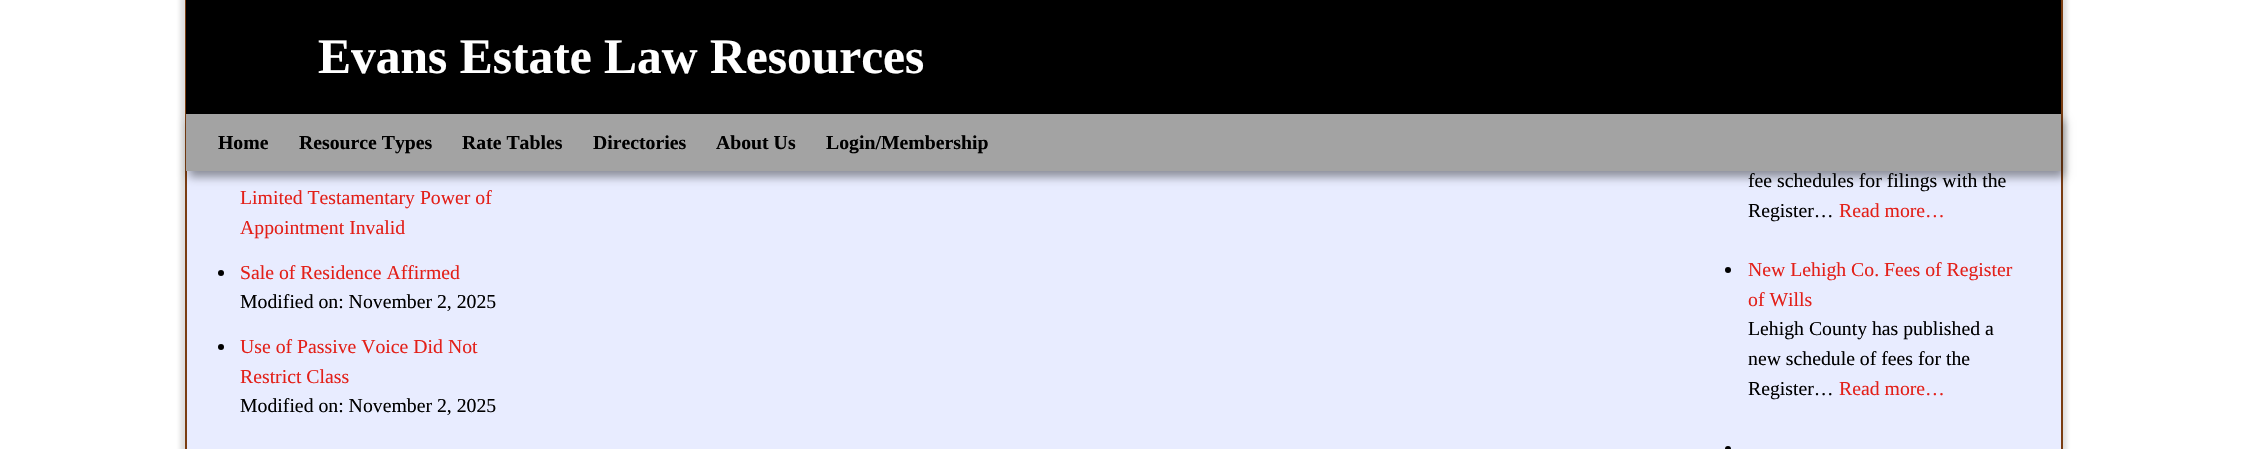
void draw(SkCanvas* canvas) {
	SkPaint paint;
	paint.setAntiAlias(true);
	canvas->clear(0xffffffff);
	paint.setColor(0x407f7f7f);
	paint.setMaskFilter(SkMaskFilter::MakeBlur(kNormal_SkBlurStyle, 2));
	canvas->drawRect(SkRect::MakeXYWH(180, -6, 1887, 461), paint);
	paint.setMaskFilter(nullptr);
	paint.setColor(0xffe8ecff);
	canvas->drawRect(SkRect::MakeXYWH(187, 171, 1874, 278), paint);
	paint.setStroke(true);
	paint.setStrokeWidth(2);
	paint.setColor(0xff7a3d11);
	canvas->drawRect(SkRect::MakeXYWH(186, -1, 1876, 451), paint);
	paint.setStroke(false);
	paint.setColor(0xff000000);
	canvas->drawRect(SkRect::MakeXYWH(186, 0, 1875, 114), paint);
	SkFont f1(fontMgr->matchFamilyStyle("Liberation Serif", SkFontStyle::Bold()), 49.5);
	f1.setSubpixel(true);
	paint.setColor(0xffffffff);
	canvas->drawString("Evans Estate Law Resources", 318, 73, f1, paint);
	paint.setColor(0x66000000);
	paint.setMaskFilter(SkMaskFilter::MakeBlur(kNormal_SkBlurStyle, 4.5));
	canvas->drawRect(SkRect::MakeXYWH(189, 120, 1875, 57), paint);
	paint.setMaskFilter(nullptr);
	paint.setColor(0xffa3a3a3);
	canvas->drawRect(SkRect::MakeXYWH(186, 114, 1875, 57), paint);
	SkFont f2(fontMgr->matchFamilyStyle("Liberation Serif", SkFontStyle::Bold()), 19.75);
	f2.setSubpixel(true);
	paint.setColor(0xff000000);
	canvas->drawString("Home", 218, 149, f2, paint);
	canvas->drawString("Resource Types", 299, 149, f2, paint);
	canvas->drawString("Rate Tables", 462, 149, f2, paint);
	canvas->drawString("Directories", 593, 149, f2, paint);
	canvas->drawString("About Us", 716, 149, f2, paint);
	canvas->drawString("Login/Membership", 826, 149, f2, paint);
	SkFont f3(fontMgr->matchFamilyStyle("Liberation Serif", SkFontStyle::Normal()), 19.75);
	f3.setSubpixel(true);
	paint.setColor(0xffe32019);
	canvas->drawString("Limited Testamentary Power of", 240, 204, f3, paint);
	canvas->drawString("Appointment Invalid", 240, 234, f3, paint);
	paint.setColor(0xff000000);
	canvas->drawCircle(221, 273, 3, paint);
	paint.setColor(0xffe32019);
	canvas->drawString("Sale of Residence Affirmed", 240, 279, f3, paint);
	paint.setColor(0xff000000);
	canvas->drawString("Modified on: November 2, 2025", 240, 308, f3, paint);
	canvas->drawCircle(221, 347, 3, paint);
	paint.setColor(0xffe32019);
	canvas->drawString("Use of Passive Voice Did Not", 240, 353, f3, paint);
	canvas->drawString("Restrict Class", 240, 383, f3, paint);
	paint.setColor(0xff000000);
	canvas->drawString("Modified on: November 2, 2025", 240, 412, f3, paint);
	canvas->drawString("fee schedules for filings with the", 1748, 187, f3, paint);
	canvas->drawString("Register…", 1748, 217, f3, paint);
	paint.setColor(0xffe32019);
	canvas->drawString("Read more…", 1839, 217, f3, paint);
	paint.setColor(0xff000000);
	canvas->drawCircle(1728, 270, 3, paint);
	paint.setColor(0xffe32019);
	canvas->drawString("New Lehigh Co. Fees of Register", 1748, 276, f3, paint);
	canvas->drawString("of Wills", 1748, 306, f3, paint);
	paint.setColor(0xff000000);
	canvas->drawString("Lehigh County has published a", 1748, 335, f3, paint);
	canvas->drawString("new schedule of fees for the", 1748, 365, f3, paint);
	canvas->drawString("Register…", 1748, 395, f3, paint);
	paint.setColor(0xffe32019);
	canvas->drawString("Read more…", 1839, 395, f3, paint);
	paint.setColor(0xff000000);
	canvas->drawCircle(1728, 449, 3, paint);
}
